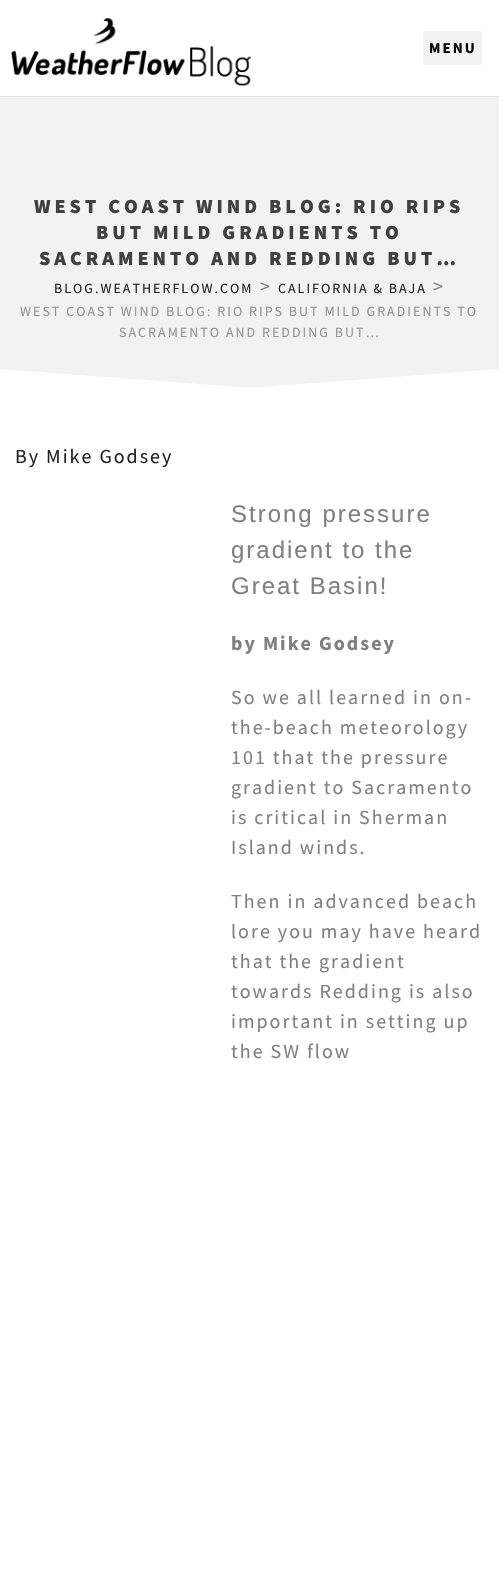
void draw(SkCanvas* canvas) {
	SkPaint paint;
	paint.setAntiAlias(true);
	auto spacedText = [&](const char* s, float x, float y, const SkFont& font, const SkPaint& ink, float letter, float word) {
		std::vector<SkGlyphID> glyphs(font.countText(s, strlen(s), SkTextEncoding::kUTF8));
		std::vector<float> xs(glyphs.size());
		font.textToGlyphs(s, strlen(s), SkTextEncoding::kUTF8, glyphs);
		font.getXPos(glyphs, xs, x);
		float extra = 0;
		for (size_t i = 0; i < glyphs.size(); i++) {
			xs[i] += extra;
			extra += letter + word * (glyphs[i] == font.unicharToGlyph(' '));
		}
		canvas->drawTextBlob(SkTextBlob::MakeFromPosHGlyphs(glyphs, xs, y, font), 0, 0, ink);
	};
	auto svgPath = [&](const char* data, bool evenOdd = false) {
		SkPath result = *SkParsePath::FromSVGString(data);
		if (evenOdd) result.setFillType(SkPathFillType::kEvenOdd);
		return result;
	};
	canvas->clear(0xffffffff);
	paint.setColor(0xffe0e0e0);
	canvas->drawRect(SkRect::MakeXYWH(0, 96, 499, 1), paint);
	canvas->drawImageRect(SkImages::DeferredFromEncodedData(SkData::MakeFromFileName("img1.png")), SkRect::MakeXYWH(11, 18, 241, 68), SkSamplingOptions());
	paint.setColor(0xfff2f2f2);
	canvas->drawRoundRect(SkRect::MakeXYWH(423, 31, 59, 34), 3, 3, paint);
	SkFont f1(fontMgr->matchFamilyStyle("Source Sans Pro", SkFontStyle::Bold()), 15);
	f1.setSubpixel(true);
	paint.setColor(0xff000000);
	spacedText("MENU", 429, 53, f1, paint, 2, 0);
	paint.setColor(0xfff2f2f2);
	canvas->drawRect(SkRect::MakeXYWH(0, 97, 499, 291), paint);
	SkFont f2(fontMgr->matchFamilyStyle("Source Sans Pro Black", SkFontStyle(900, SkFontStyle::kNormal_Width, SkFontStyle::kUpright_Slant)), 20);
	f2.setSubpixel(true);
	paint.setColor(0xff404040);
	spacedText("WEST COAST WIND BLOG: RIO RIPS", 34, 213, f2, paint, 4, 0);
	spacedText("BUT MILD GRADIENTS TO", 96, 239, f2, paint, 4, 0);
	spacedText("SACRAMENTO AND REDDING BUT…", 39, 265, f2, paint, 4, 0);
	SkFont f3(fontMgr->matchFamilyStyle("Source Sans Pro", SkFontStyle::Normal()), 14);
	f3.setSubpixel(true);
	paint.setColor(0xff232323);
	spacedText("BLOG.WEATHERFLOW.COM", 54, 293, f3, paint, 2, 0);
	SkFont f4(fontMgr->matchFamilyStyle("Source Sans Pro", SkFontStyle::Normal()), 20);
	f4.setSubpixel(true);
	paint.setColor(0xff808080);
	spacedText(">", 260, 293, f4, paint, 2, 0);
	paint.setColor(0xff232323);
	spacedText("CALIFORNIA & BAJA", 278, 293, f3, paint, 2, 0);
	paint.setColor(0xff808080);
	spacedText(">", 433, 293, f4, paint, 2, 0);
	paint.setColor(0xff959595);
	spacedText("WEST COAST WIND BLOG: RIO RIPS BUT MILD GRADIENTS TO", 20, 316, f3, paint, 2, 0);
	spacedText("SACRAMENTO AND REDDING BUT…", 119, 337, f3, paint, 2, 0);
	paint.setColor(0xffffffff);
	canvas->drawPath(svgPath("M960 441H0V369Z"), paint);
	canvas->drawPath(svgPath("M499 441H-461L499 369Z"), paint);
	paint.setColor(0xff232323);
	spacedText("By Mike Godsey", 15, 463, f4, paint, 2, 0);
	SkFont f5(fontMgr->matchFamilyStyle("Liberation Sans", SkFontStyle::Normal()), 24);
	f5.setSubpixel(true);
	paint.setColor(0xff808080);
	spacedText("Strong pressure", 231, 522, f5, paint, 2, 0);
	spacedText("gradient to the", 231, 558, f5, paint, 2, 0);
	spacedText("Great Basin!", 231, 594, f5, paint, 2, 0);
	SkFont f6(fontMgr->matchFamilyStyle("Source Sans Pro", SkFontStyle::Bold()), 20);
	f6.setSubpixel(true);
	spacedText("by Mike Godsey", 231, 650, f6, paint, 2, 0);
	spacedText("So we all learned in on-", 231, 704, f4, paint, 2, 0);
	spacedText("the-beach meteorology", 231, 734, f4, paint, 2, 0);
	spacedText("101 that the pressure", 231, 764, f4, paint, 2, 0);
	spacedText("gradient to Sacramento", 231, 794, f4, paint, 2, 0);
	spacedText("is critical in Sherman", 231, 824, f4, paint, 2, 0);
	spacedText("Island winds.", 231, 854, f4, paint, 2, 0);
	spacedText("Then in advanced beach", 231, 908, f4, paint, 2, 0);
	spacedText("lore you may have heard", 231, 938, f4, paint, 2, 0);
	spacedText("that the gradient", 231, 968, f4, paint, 2, 0);
	spacedText("towards Redding is also", 231, 998, f4, paint, 2, 0);
	spacedText("important in setting up", 231, 1028, f4, paint, 2, 0);
	spacedText("the SW flow", 231, 1058, f4, paint, 2, 0);
}
